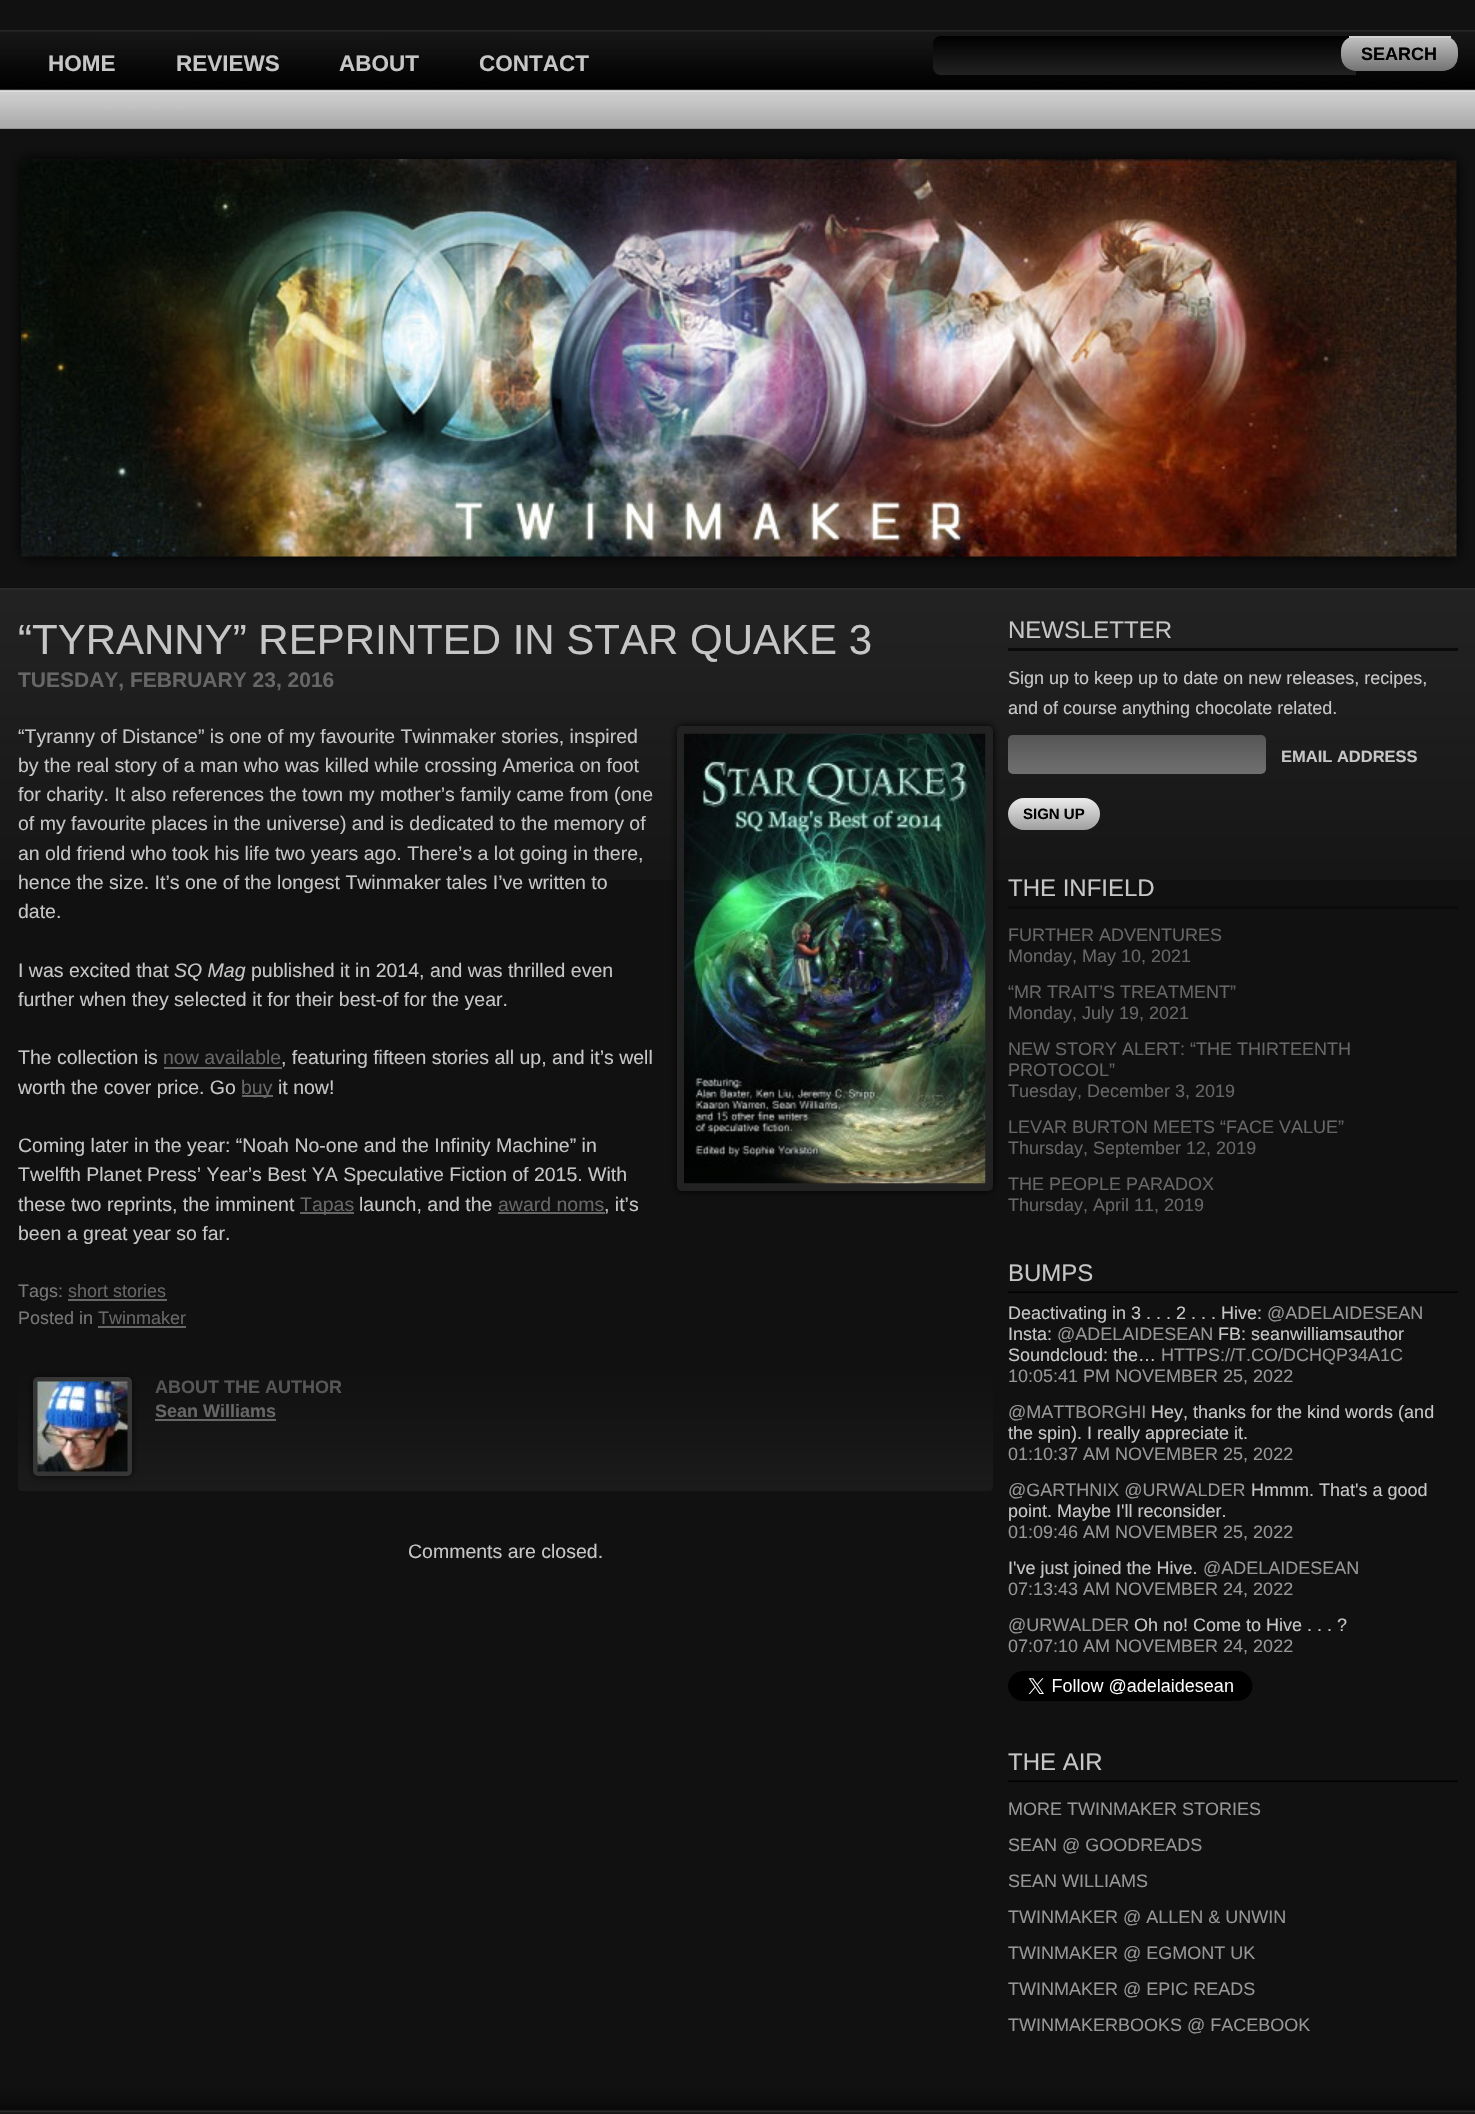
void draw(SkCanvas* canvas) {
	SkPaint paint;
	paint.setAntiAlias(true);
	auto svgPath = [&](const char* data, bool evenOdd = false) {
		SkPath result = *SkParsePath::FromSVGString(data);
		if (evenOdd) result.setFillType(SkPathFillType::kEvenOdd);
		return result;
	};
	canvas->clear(0xff111111);
	canvas->drawImageRect(SkImages::DeferredFromEncodedData(SkData::MakeFromFileName("img1.png")), SkRect::MakeXYWH(0, 30, 1475, 99), SkSamplingOptions());
	SkFont f1(fontMgr->matchFamilyStyle("Liberation Sans", SkFontStyle::Bold()), 22.5);
	f1.setSubpixel(true);
	paint.setColor(0xffc6c6c6);
	canvas->drawString("HOME", 48, 71, f1, paint);
	canvas->drawString("REVIEWS", 176, 71, f1, paint);
	canvas->drawString("ABOUT", 339, 71, f1, paint);
	canvas->drawString("CONTACT", 479, 71, f1, paint);
	{
		const SkColor colors[] = {0xff000000, 0xff222222};
		const float stops[] = {0, 1};
		const SkPoint ends[] = {{1145, 36}, {1145, 75}};
		paint.setShader(SkGradientShader::MakeLinear(ends, colors, stops, 2, SkTileMode::kClamp));
		paint.setAlpha(255);
	}
	canvas->drawPath(svgPath("M941 36H1356V75H941C936.5 75 933 71.5 933 67V44C933 39.5 936.5 36 941 36Z"), paint);
	canvas->save();
	canvas->clipPath(svgPath("M1356 36H1443C1451.5 36 1458 42.5 1458 51V56C1458 64.5 1451.5 71 1443 71H1356C1347.5 71 1341 64.5 1341 56V51C1341 42.5 1347.5 36 1356 36Z"), true);
	{
		const SkColor colors[] = {0xffc1c1c1, 0xff737373};
		const float stops[] = {0, 1};
		const SkPoint ends[] = {{1400, 37}, {1400, 71}};
		paint.setShader(SkGradientShader::MakeLinear(ends, colors, stops, 2, SkTileMode::kClamp));
		paint.setAlpha(255);
	}
	canvas->drawPath(svgPath("M1341 38H1458V56C1458 64.5 1451.5 71 1443 71H1356C1347.5 71 1341 64.5 1341 56Z"), paint);
	canvas->restore();
	paint.setShader(nullptr);
	paint.setColor(0xffd1d1d1);
	canvas->drawRect(SkRect::MakeXYWH(1349, 36, 102, 2), paint);
	SkFont f2(fontMgr->matchFamilyStyle("Liberation Sans", SkFontStyle::Bold()), 18);
	f2.setSubpixel(true);
	paint.setColor(0xff000000);
	canvas->drawString("SEARCH", 1361, 60, f2, paint);
	paint.setMaskFilter(SkMaskFilter::MakeBlur(kNormal_SkBlurStyle, 7.5));
	canvas->drawRect(SkRect::MakeXYWH(21, 159, 1436, 398), paint);
	paint.setMaskFilter(nullptr);
	canvas->drawImageRect(SkImages::DeferredFromEncodedData(SkData::MakeFromFileName("img2.png")), SkRect::MakeXYWH(21, 159, 1436, 398), SkSamplingOptions());
	canvas->drawImageRect(SkImages::DeferredFromEncodedData(SkData::MakeFromFileName("img3.png")), SkRect::MakeXYWH(0, 588, 1475, 292), SkSamplingOptions());
	SkFont f3(fontMgr->matchFamilyStyle("Liberation Sans", SkFontStyle::Normal()), 42);
	f3.setSubpixel(true);
	paint.setColor(0xffc6c6c6);
	canvas->drawString("“TYRANNY” REPRINTED IN STAR QUAKE 3", 18, 654, f3, paint);
	SkFont f4(fontMgr->matchFamilyStyle("Liberation Sans", SkFontStyle::Bold()), 21);
	f4.setSubpixel(true);
	paint.setColor(0xff666666);
	canvas->drawString("TUESDAY, FEBRUARY 23, 2016", 18, 687, f4, paint);
	SkFont f5(fontMgr->matchFamilyStyle("Liberation Sans", SkFontStyle::Normal()), 19.5);
	f5.setSubpixel(true);
	paint.setColor(0xffc6c6c6);
	canvas->drawString("“Tyranny of Distance” is one of my favourite Twinmaker stories, inspired", 18, 743, f5, paint);
	paint.setColor(0xff000000);
	paint.setMaskFilter(SkMaskFilter::MakeBlur(kNormal_SkBlurStyle, 4));
	canvas->drawRoundRect(SkRect::MakeXYWH(677, 726, 316, 465), 5, 5, paint);
	paint.setMaskFilter(nullptr);
	paint.setColor(0xff222222);
	canvas->drawRoundRect(SkRect::MakeXYWH(677, 726, 316, 465), 5, 5, paint);
	canvas->drawImageRect(SkImages::DeferredFromEncodedData(SkData::MakeFromFileName("img4.png")), SkRect::MakeXYWH(684, 733, 302, 451), SkSamplingOptions());
	paint.setColor(0xffc6c6c6);
	canvas->drawString("by the real story of a man who was killed while crossing America on foot", 18, 772, f5, paint);
	canvas->drawString("for charity. It also references the town my mother’s family came from (one", 18, 801, f5, paint);
	canvas->drawString("of my favourite places in the universe) and is dedicated to the memory of", 18, 830, f5, paint);
	canvas->drawString("an old friend who took his life two years ago. There’s a lot going in there,", 18, 860, f5, paint);
	canvas->drawString("hence the size. It’s one of the longest Twinmaker tales I’ve written to", 18, 889, f5, paint);
	canvas->drawString("date.", 18, 918, f5, paint);
	canvas->drawString("I was excited that", 18, 977, f5, paint);
	SkFont f6(fontMgr->matchFamilyStyle("Liberation Sans", SkFontStyle::Italic()), 19.5);
	f6.setSubpixel(true);
	canvas->drawString("SQ Mag", 174, 977, f6, paint);
	canvas->drawString("published it in 2014, and was thrilled even", 251, 977, f5, paint);
	canvas->drawString("further when they selected it for their best-of for the year.", 18, 1006, f5, paint);
	canvas->drawString("The collection is", 18, 1064, f5, paint);
	paint.setColor(0xff666666);
	canvas->drawString("now available", 163, 1064, f5, paint);
	canvas->drawRect(SkRect::MakeXYWH(164, 1067, 118, 2), paint);
	paint.setColor(0xffc6c6c6);
	canvas->drawString(", featuring fifteen stories all up, and it’s well", 281, 1064, f5, paint);
	canvas->drawString("worth the cover price. Go", 18, 1094, f5, paint);
	paint.setColor(0xff666666);
	canvas->drawRect(SkRect::MakeXYWH(242, 1095, 31, 2), paint);
	canvas->drawString("buy", 241, 1094, f5, paint);
	paint.setColor(0xffc6c6c6);
	canvas->drawString("it now!", 278, 1094, f5, paint);
	canvas->drawString("Coming later in the year: “Noah No-one and the Infinity Machine” in", 18, 1152, f5, paint);
	canvas->drawString("Twelfth Planet Press’ Year’s Best YA Speculative Fiction of 2015. With", 18, 1181, f5, paint);
	canvas->drawString("these two reprints, the imminent", 18, 1211, f5, paint);
	paint.setColor(0xff666666);
	canvas->drawRect(SkRect::MakeXYWH(300, 1212, 54, 2), paint);
	canvas->drawString("Tapas", 300, 1211, f5, paint);
	paint.setColor(0xffc6c6c6);
	canvas->drawString("launch, and the", 359, 1211, f5, paint);
	paint.setColor(0xff666666);
	canvas->drawString("award noms", 498, 1211, f5, paint);
	canvas->drawRect(SkRect::MakeXYWH(498, 1212, 107, 2), paint);
	paint.setColor(0xffc6c6c6);
	canvas->drawString(", it’s", 604, 1211, f5, paint);
	canvas->drawString("been a great year so far.", 18, 1240, f5, paint);
	SkFont f7(fontMgr->matchFamilyStyle("Liberation Sans", SkFontStyle::Normal()), 18);
	f7.setSubpixel(true);
	paint.setColor(0xff767676);
	canvas->drawString("Tags:", 18, 1297, f7, paint);
	paint.setColor(0xff666666);
	canvas->drawString("short stories", 68, 1297, f7, paint);
	canvas->drawRect(SkRect::MakeXYWH(68, 1299, 99, 2), paint);
	paint.setColor(0xff767676);
	canvas->drawString("Posted in", 18, 1324, f7, paint);
	paint.setColor(0xff666666);
	canvas->drawString("Twinmaker", 98, 1324, f7, paint);
	canvas->drawRect(SkRect::MakeXYWH(98, 1326, 88, 2), paint);
	canvas->drawImageRect(SkImages::DeferredFromEncodedData(SkData::MakeFromFileName("img5.png")), SkRect::MakeXYWH(18, 1362, 975, 129), SkSamplingOptions());
	paint.setColor(0xff060606);
	paint.setMaskFilter(SkMaskFilter::MakeBlur(kNormal_SkBlurStyle, 4));
	canvas->drawRoundRect(SkRect::MakeXYWH(33, 1377, 99, 99), 5, 5, paint);
	paint.setMaskFilter(nullptr);
	paint.setColor(0xff363636);
	canvas->drawRoundRect(SkRect::MakeXYWH(33, 1377, 99, 99), 5, 5, paint);
	canvas->drawImageRect(SkImages::DeferredFromEncodedData(SkData::MakeFromFileName("img6.png")), SkRect::MakeXYWH(37, 1381, 91, 91), SkSamplingOptions());
	paint.setColor(0xff565656);
	canvas->drawString("ABOUT THE AUTHOR", 155, 1393, f2, paint);
	paint.setColor(0xff666666);
	canvas->drawString("Sean Williams", 155, 1417, f2, paint);
	canvas->drawRect(SkRect::MakeXYWH(155, 1419, 121, 2), paint);
	paint.setColor(0xffc6c6c6);
	canvas->drawString("Comments are closed.", 408, 1558, f5, paint);
	paint.setColor(0xff0b0b0b);
	canvas->drawRect(SkRect::MakeXYWH(1008, 648, 450, 3), paint);
	SkFont f8(fontMgr->matchFamilyStyle("Liberation Sans", SkFontStyle::Normal()), 24);
	f8.setSubpixel(true);
	paint.setColor(0xffc6c6c6);
	canvas->drawString("NEWSLETTER", 1008, 638, f8, paint);
	canvas->drawString("Sign up to keep up to date on new releases, recipes,", 1008, 684, f7, paint);
	canvas->drawString("and of course anything chocolate related.", 1008, 714, f7, paint);
	{
		const SkColor colors[] = {0xff565656, 0xff707070};
		const float stops[] = {0, 1};
		const SkPoint ends[] = {{1137, 735}, {1137, 774}};
		paint.setShader(SkGradientShader::MakeLinear(ends, colors, stops, 2, SkTileMode::kClamp));
		paint.setAlpha(255);
	}
	canvas->drawRoundRect(SkRect::MakeXYWH(1008, 735, 258, 39), 5, 5, paint);
	SkFont f9(fontMgr->matchFamilyStyle("Liberation Sans", SkFontStyle::Bold()), 16.5);
	f9.setSubpixel(true);
	paint.setShader(nullptr);
	paint.setColor(0xffc6c6c6);
	canvas->drawString("EMAIL ADDRESS", 1281, 762, f9, paint);
	{
		const SkColor colors[] = {0xffececec, 0xff9e9e9e};
		const float stops[] = {0, 1};
		const SkPoint ends[] = {{1054, 798}, {1054, 830}};
		paint.setShader(SkGradientShader::MakeLinear(ends, colors, stops, 2, SkTileMode::kClamp));
		paint.setAlpha(255);
	}
	canvas->drawRoundRect(SkRect::MakeXYWH(1008, 798, 92, 32), 16, 16, paint);
	SkFont f10(fontMgr->matchFamilyStyle("Liberation Sans", SkFontStyle::Bold()), 15);
	f10.setSubpixel(true);
	paint.setShader(nullptr);
	paint.setColor(0xff000000);
	canvas->drawString("SIGN UP", 1023, 819, f10, paint);
	paint.setColor(0xff0b0b0b);
	canvas->drawRect(SkRect::MakeXYWH(1008, 906, 450, 3), paint);
	paint.setColor(0xffc6c6c6);
	canvas->drawString("THE INFIELD", 1008, 896, f8, paint);
	paint.setColor(0xff666666);
	canvas->drawString("FURTHER ADVENTURES", 1008, 941, f7, paint);
	canvas->drawString("Monday, May 10, 2021", 1008, 962, f7, paint);
	canvas->drawString("“MR TRAIT’S TREATMENT”", 1008, 998, f7, paint);
	canvas->drawString("Monday, July 19, 2021", 1008, 1019, f7, paint);
	canvas->drawString("NEW STORY ALERT: “THE THIRTEENTH", 1008, 1055, f7, paint);
	canvas->drawString("PROTOCOL”", 1008, 1076, f7, paint);
	canvas->drawString("Tuesday, December 3, 2019", 1008, 1097, f7, paint);
	canvas->drawString("LEVAR BURTON MEETS “FACE VALUE”", 1008, 1133, f7, paint);
	canvas->drawString("Thursday, September 12, 2019", 1008, 1154, f7, paint);
	canvas->drawString("THE PEOPLE PARADOX", 1008, 1190, f7, paint);
	canvas->drawString("Thursday, April 11, 2019", 1008, 1211, f7, paint);
	canvas->drawImageRect(SkImages::DeferredFromEncodedData(SkData::MakeFromFileName("img7.png")), SkRect::MakeXYWH(1008, 1291, 450, 2), SkSamplingOptions());
	paint.setColor(0xffc6c6c6);
	canvas->drawString("BUMPS", 1008, 1281, f8, paint);
	canvas->drawString("Deactivating in 3 . . . 2 . . . Hive:", 1008, 1319, f7, paint);
	paint.setColor(0xff969696);
	canvas->drawString("@ADELAIDESEAN", 1267, 1319, f7, paint);
	paint.setColor(0xffc6c6c6);
	canvas->drawString("Insta:", 1008, 1340, f7, paint);
	paint.setColor(0xff969696);
	canvas->drawString("@ADELAIDESEAN", 1057, 1340, f7, paint);
	paint.setColor(0xffc6c6c6);
	canvas->drawString("FB: seanwilliamsauthor", 1218, 1340, f7, paint);
	canvas->drawString("Soundcloud: the…", 1008, 1361, f7, paint);
	paint.setColor(0xff969696);
	canvas->drawString("HTTPS://T.CO/DCHQP34A1C", 1161, 1361, f7, paint);
	canvas->drawString("10:05:41 PM NOVEMBER 25, 2022", 1008, 1382, f7, paint);
	canvas->drawString("@MATTBORGHI", 1008, 1418, f7, paint);
	paint.setColor(0xffc6c6c6);
	canvas->drawString("Hey, thanks for the kind words (and", 1151, 1418, f7, paint);
	canvas->drawString("the spin). I really appreciate it.", 1008, 1439, f7, paint);
	paint.setColor(0xff969696);
	canvas->drawString("01:10:37 AM NOVEMBER 25, 2022", 1008, 1460, f7, paint);
	canvas->drawString("@GARTHNIX @URWALDER", 1008, 1496, f7, paint);
	paint.setColor(0xffc6c6c6);
	canvas->drawString("Hmmm. That's a good", 1251, 1496, f7, paint);
	canvas->drawString("point. Maybe I'll reconsider.", 1008, 1517, f7, paint);
	paint.setColor(0xff969696);
	canvas->drawString("01:09:46 AM NOVEMBER 25, 2022", 1008, 1538, f7, paint);
	paint.setColor(0xffc6c6c6);
	canvas->drawString("I've just joined the Hive.", 1008, 1574, f7, paint);
	paint.setColor(0xff969696);
	canvas->drawString("@ADELAIDESEAN", 1203, 1574, f7, paint);
	canvas->drawString("07:13:43 AM NOVEMBER 24, 2022", 1008, 1595, f7, paint);
	canvas->drawString("@URWALDER", 1008, 1631, f7, paint);
	paint.setColor(0xffc6c6c6);
	canvas->drawString("Oh no! Come to Hive . . . ?", 1134, 1631, f7, paint);
	paint.setColor(0xff969696);
	canvas->drawString("07:07:10 AM NOVEMBER 24, 2022", 1008, 1652, f7, paint);
	canvas->drawImageRect(SkImages::DeferredFromEncodedData(SkData::MakeFromFileName("img8.png")), SkRect::MakeXYWH(1008, 1671, 245, 30), SkSamplingOptions());
	canvas->drawImageRect(SkImages::DeferredFromEncodedData(SkData::MakeFromFileName("img7.png")), SkRect::MakeXYWH(1008, 1780, 450, 2), SkSamplingOptions());
	paint.setColor(0xffc6c6c6);
	canvas->drawString("THE AIR", 1008, 1770, f8, paint);
	paint.setColor(0xff969696);
	canvas->drawString("MORE TWINMAKER STORIES", 1008, 1815, f7, paint);
	canvas->drawString("SEAN @ GOODREADS", 1008, 1851, f7, paint);
	canvas->drawString("SEAN WILLIAMS", 1008, 1887, f7, paint);
	canvas->drawString("TWINMAKER @ ALLEN & UNWIN", 1008, 1923, f7, paint);
	canvas->drawString("TWINMAKER @ EGMONT UK", 1008, 1959, f7, paint);
	canvas->drawString("TWINMAKER @ EPIC READS", 1008, 1995, f7, paint);
	canvas->drawString("TWINMAKERBOOKS @ FACEBOOK", 1008, 2031, f7, paint);
	canvas->drawImageRect(SkImages::DeferredFromEncodedData(SkData::MakeFromFileName("img9.png")), SkRect::MakeXYWH(0, 2081, 1475, 33), SkSamplingOptions());
}
